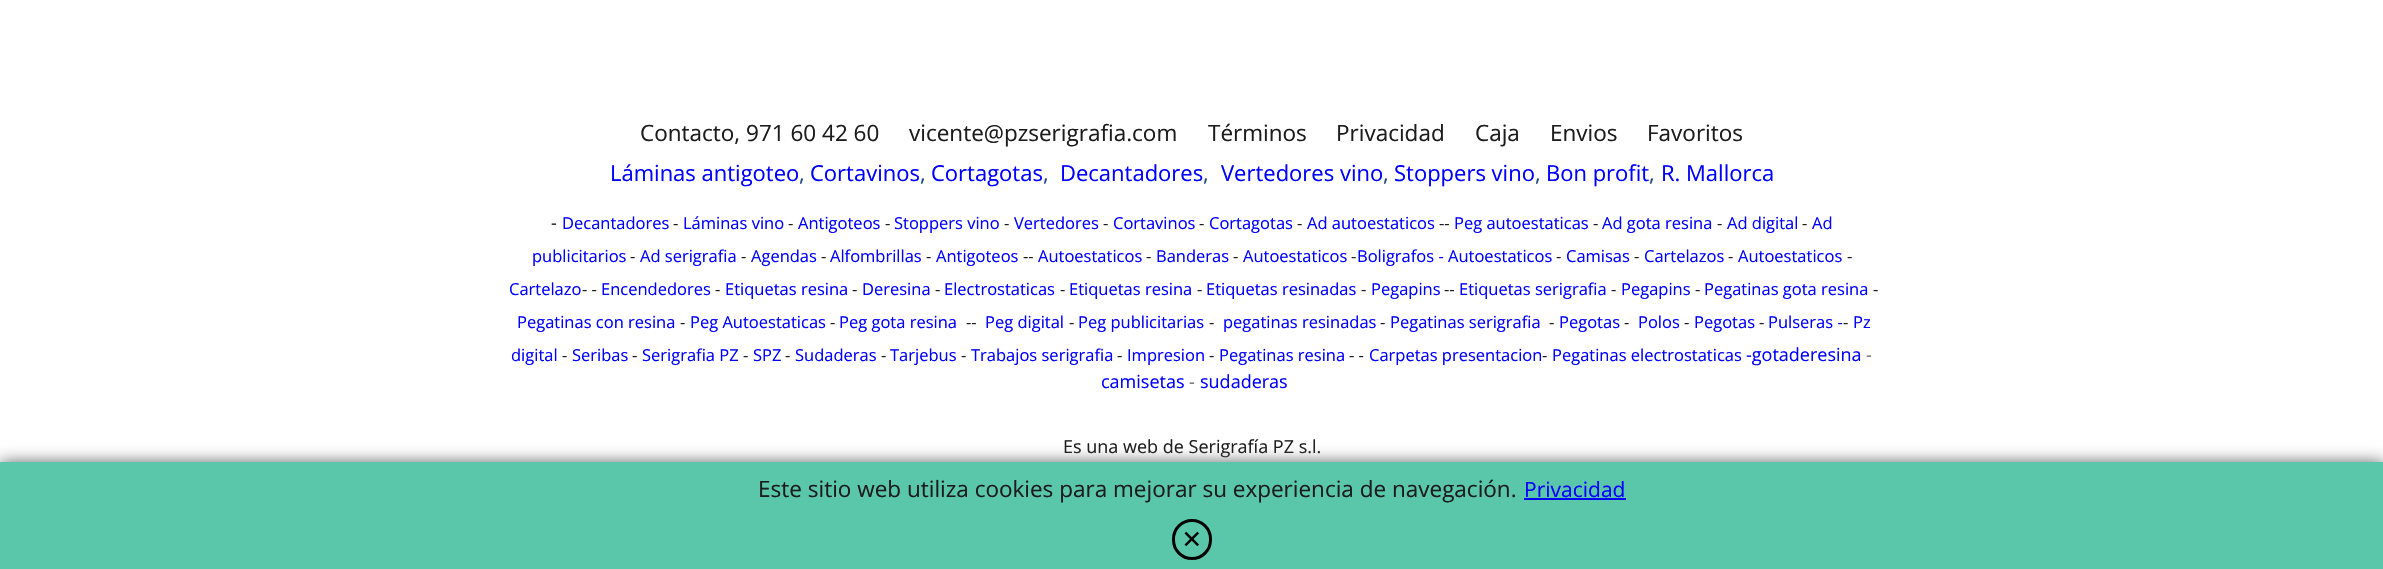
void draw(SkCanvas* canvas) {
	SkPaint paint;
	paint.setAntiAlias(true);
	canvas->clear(0xffffffff);
	SkFont f1(fontMgr->matchFamilyStyle("Open Sans", SkFontStyle::Normal()), 22.5);
	f1.setSubpixel(true);
	paint.setColor(0xff1c1c1c);
	canvas->drawString("Contacto, 971 60 42 60", 640, 141, f1, paint);
	canvas->drawString("vicente@pzserigrafia.com", 909, 141, f1, paint);
	canvas->drawString("Términos", 1208, 141, f1, paint);
	canvas->drawString("Privacidad", 1336, 141, f1, paint);
	canvas->drawString("Caja", 1475, 141, f1, paint);
	canvas->drawString("Envios", 1550, 141, f1, paint);
	canvas->drawString("Favoritos", 1647, 141, f1, paint);
	SkFont f2(fontMgr->matchFamilyStyle("Open Sans", SkFontStyle::Normal()), 22);
	f2.setSubpixel(true);
	paint.setColor(0xff0000ff);
	canvas->drawString("Láminas antigoteo", 610, 181, f2, paint);
	paint.setColor(0xff1f497d);
	canvas->drawString(",", 799, 181, f2, paint);
	paint.setColor(0xff0000ff);
	canvas->drawString("Cortavinos", 810, 181, f2, paint);
	paint.setColor(0xff1f497d);
	canvas->drawString(",", 920, 181, f2, paint);
	paint.setColor(0xff0000ff);
	canvas->drawString("Cortagotas", 931, 181, f2, paint);
	paint.setColor(0xff1f497d);
	canvas->drawString(",", 1043, 181, f2, paint);
	paint.setColor(0xff0000ff);
	canvas->drawString("Decantadores", 1060, 181, f2, paint);
	paint.setColor(0xff1f497d);
	canvas->drawString(",", 1203, 181, f2, paint);
	paint.setColor(0xff0000ff);
	canvas->drawString("Vertedores vino", 1221, 181, f2, paint);
	paint.setColor(0xff1f497d);
	canvas->drawString(",", 1383, 181, f2, paint);
	paint.setColor(0xff0000ff);
	canvas->drawString("Stoppers vino", 1394, 181, f2, paint);
	paint.setColor(0xff1f497d);
	canvas->drawString(",", 1535, 181, f2, paint);
	paint.setColor(0xff0000ff);
	canvas->drawString("Bon profit", 1546, 181, f2, paint);
	paint.setColor(0xff1f497d);
	canvas->drawString(",", 1649, 181, f2, paint);
	paint.setColor(0xff0000ff);
	canvas->drawString("R. Mallorca", 1661, 181, f2, paint);
	SkFont f3(fontMgr->matchFamilyStyle("Open Sans", SkFontStyle::Normal()), 18);
	f3.setSubpixel(true);
	paint.setColor(0xff1c1c1c);
	canvas->drawString("-", 551, 229, f3, paint);
	SkFont f4(fontMgr->matchFamilyStyle("Open Sans", SkFontStyle::Normal()), 16.5);
	f4.setSubpixel(true);
	paint.setColor(0xff0000ff);
	canvas->drawString("Decantadores", 562, 229, f4, paint);
	paint.setColor(0xff1c1c1c);
	canvas->drawString("-", 673, 229, f4, paint);
	paint.setColor(0xff0000ff);
	canvas->drawString("Láminas vino", 683, 229, f4, paint);
	paint.setColor(0xff1c1c1c);
	canvas->drawString("-", 788, 229, f4, paint);
	paint.setColor(0xff0000ff);
	canvas->drawString("Antigoteos", 798, 229, f4, paint);
	paint.setColor(0xff1c1c1c);
	canvas->drawString("-", 885, 229, f4, paint);
	paint.setColor(0xff0000ff);
	canvas->drawString("Stoppers vino", 894, 229, f4, paint);
	paint.setColor(0xff1c1c1c);
	canvas->drawString("-", 1004, 229, f4, paint);
	paint.setColor(0xff0000ff);
	canvas->drawString("Vertedores", 1014, 229, f4, paint);
	paint.setColor(0xff1c1c1c);
	canvas->drawString("-", 1103, 229, f4, paint);
	paint.setColor(0xff0000ff);
	canvas->drawString("Cortavinos", 1113, 229, f4, paint);
	paint.setColor(0xff1c1c1c);
	canvas->drawString("-", 1199, 229, f4, paint);
	paint.setColor(0xff0000ff);
	canvas->drawString("Cortagotas", 1209, 229, f4, paint);
	paint.setColor(0xff1c1c1c);
	canvas->drawString("-", 1297, 229, f4, paint);
	paint.setColor(0xff0000ff);
	canvas->drawString("Ad autoestaticos", 1307, 229, f4, paint);
	paint.setColor(0xff1c1c1c);
	canvas->drawString("--", 1439, 229, f4, paint);
	paint.setColor(0xff0000ff);
	canvas->drawString("Peg autoestaticas", 1454, 229, f4, paint);
	paint.setColor(0xff1c1c1c);
	canvas->drawString("-", 1593, 229, f4, paint);
	paint.setColor(0xff0000ff);
	canvas->drawString("Ad gota resina", 1602, 229, f4, paint);
	paint.setColor(0xff1c1c1c);
	canvas->drawString("-", 1717, 229, f4, paint);
	paint.setColor(0xff0000ff);
	canvas->drawString("Ad digital", 1727, 229, f4, paint);
	paint.setColor(0xff1c1c1c);
	canvas->drawString("-", 1802, 229, f4, paint);
	paint.setColor(0xff0000ff);
	canvas->drawString("Ad", 1812, 229, f4, paint);
	canvas->drawString("publicitarios", 532, 262, f4, paint);
	paint.setColor(0xff1c1c1c);
	canvas->drawString("-", 630, 262, f4, paint);
	paint.setColor(0xff0000ff);
	canvas->drawString("Ad serigrafia", 640, 262, f4, paint);
	paint.setColor(0xff1c1c1c);
	canvas->drawString("-", 741, 262, f4, paint);
	paint.setColor(0xff0000ff);
	canvas->drawString("Agendas", 751, 262, f4, paint);
	paint.setColor(0xff1c1c1c);
	canvas->drawString("-", 821, 262, f4, paint);
	paint.setColor(0xff0000ff);
	canvas->drawString("Alfombrillas", 830, 262, f4, paint);
	paint.setColor(0xff1c1c1c);
	canvas->drawString("-", 926, 262, f4, paint);
	paint.setColor(0xff0000ff);
	canvas->drawString("Antigoteos", 936, 262, f4, paint);
	paint.setColor(0xff1c1c1c);
	canvas->drawString("--", 1023, 262, f4, paint);
	paint.setColor(0xff0000ff);
	canvas->drawString("Autoestaticos", 1038, 262, f4, paint);
	paint.setColor(0xff1c1c1c);
	canvas->drawString("-", 1146, 262, f4, paint);
	paint.setColor(0xff0000ff);
	canvas->drawString("Banderas", 1156, 262, f4, paint);
	paint.setColor(0xff1c1c1c);
	canvas->drawString("-", 1233, 262, f4, paint);
	paint.setColor(0xff0000ff);
	canvas->drawString("Autoestaticos", 1243, 262, f4, paint);
	paint.setColor(0xff1c1c1c);
	canvas->drawString("-", 1351, 262, f4, paint);
	paint.setColor(0xff0000ff);
	canvas->drawString("Boligrafos - Autoestaticos", 1357, 262, f4, paint);
	paint.setColor(0xffffffff);
	canvas->drawRect(SkRect::MakeXYWH(1356, 257, 1, 1), paint);
	paint.setColor(0xff1c1c1c);
	canvas->drawString("-", 1556, 262, f4, paint);
	paint.setColor(0xff0000ff);
	canvas->drawString("Camisas", 1566, 262, f4, paint);
	paint.setColor(0xff1c1c1c);
	canvas->drawString("-", 1634, 262, f4, paint);
	paint.setColor(0xff0000ff);
	canvas->drawString("Cartelazos", 1644, 262, f4, paint);
	paint.setColor(0xff1c1c1c);
	canvas->drawString("-", 1728, 262, f4, paint);
	paint.setColor(0xff0000ff);
	canvas->drawString("Autoestaticos", 1738, 262, f4, paint);
	paint.setColor(0xff1c1c1c);
	canvas->drawString("-", 1847, 262, f4, paint);
	paint.setColor(0xff0000ff);
	canvas->drawString("Cartelazo", 509, 295, f4, paint);
	paint.setColor(0xff1c1c1c);
	canvas->drawString("- -", 582, 295, f4, paint);
	paint.setColor(0xff0000ff);
	canvas->drawString("Encendedores", 601, 295, f4, paint);
	paint.setColor(0xff1c1c1c);
	canvas->drawString("-", 715, 295, f4, paint);
	paint.setColor(0xff0000ff);
	canvas->drawString("Etiquetas resina", 725, 295, f4, paint);
	paint.setColor(0xff1c1c1c);
	canvas->drawString("-", 852, 295, f4, paint);
	paint.setColor(0xff0000ff);
	canvas->drawString("Deresina", 862, 295, f4, paint);
	paint.setColor(0xff1c1c1c);
	canvas->drawString("-", 935, 295, f4, paint);
	paint.setColor(0xff0000ff);
	canvas->drawString("Electrostaticas", 944, 295, f4, paint);
	paint.setColor(0xff1c1c1c);
	canvas->drawString("-", 1060, 295, f4, paint);
	paint.setColor(0xff0000ff);
	canvas->drawString("Etiquetas resina", 1069, 295, f4, paint);
	paint.setColor(0xff1c1c1c);
	canvas->drawString("-", 1197, 295, f4, paint);
	paint.setColor(0xff0000ff);
	canvas->drawString("Etiquetas resinadas", 1206, 295, f4, paint);
	paint.setColor(0xff1c1c1c);
	canvas->drawString("-", 1361, 295, f4, paint);
	paint.setColor(0xff0000ff);
	canvas->drawString("Pegapins", 1371, 295, f4, paint);
	paint.setColor(0xff1c1c1c);
	canvas->drawString("--", 1444, 295, f4, paint);
	paint.setColor(0xff0000ff);
	canvas->drawString("Etiquetas serigrafia", 1459, 295, f4, paint);
	paint.setColor(0xff1c1c1c);
	canvas->drawString("-", 1611, 295, f4, paint);
	paint.setColor(0xff0000ff);
	canvas->drawString("Pegapins", 1621, 295, f4, paint);
	paint.setColor(0xff1c1c1c);
	canvas->drawString("-", 1695, 295, f4, paint);
	paint.setColor(0xff0000ff);
	canvas->drawString("Pegatinas gota resina", 1704, 295, f4, paint);
	paint.setColor(0xff1c1c1c);
	canvas->drawString("-", 1873, 295, f4, paint);
	paint.setColor(0xff0000ff);
	canvas->drawString("Pegatinas con resina", 517, 328, f4, paint);
	paint.setColor(0xff1c1c1c);
	canvas->drawString("-", 680, 328, f4, paint);
	paint.setColor(0xff0000ff);
	canvas->drawString("Peg Autoestaticas", 690, 328, f4, paint);
	paint.setColor(0xff1c1c1c);
	canvas->drawString("-", 830, 328, f4, paint);
	paint.setColor(0xff0000ff);
	canvas->drawString("Peg gota resina", 839, 328, f4, paint);
	paint.setColor(0xff1c1c1c);
	canvas->drawString("--", 966, 328, f4, paint);
	paint.setColor(0xff0000ff);
	canvas->drawString("Peg digital", 985, 328, f4, paint);
	paint.setColor(0xff1c1c1c);
	canvas->drawString("-", 1069, 328, f4, paint);
	paint.setColor(0xff0000ff);
	canvas->drawString("Peg publicitarias", 1078, 328, f4, paint);
	paint.setColor(0xff1c1c1c);
	canvas->drawString("-", 1209, 328, f4, paint);
	paint.setColor(0xff0000ff);
	canvas->drawString("pegatinas resinadas", 1223, 328, f4, paint);
	paint.setColor(0xff1c1c1c);
	canvas->drawString("-", 1380, 328, f4, paint);
	paint.setColor(0xff0000ff);
	canvas->drawString("Pegatinas serigrafia", 1390, 328, f4, paint);
	paint.setColor(0xff1c1c1c);
	canvas->drawString("-", 1549, 328, f4, paint);
	paint.setColor(0xff0000ff);
	canvas->drawString("Pegotas", 1559, 328, f4, paint);
	paint.setColor(0xff1c1c1c);
	canvas->drawString("-", 1624, 328, f4, paint);
	paint.setColor(0xff0000ff);
	canvas->drawString("Polos", 1638, 328, f4, paint);
	paint.setColor(0xff1c1c1c);
	canvas->drawString("-", 1684, 328, f4, paint);
	paint.setColor(0xff0000ff);
	canvas->drawString("Pegotas", 1694, 328, f4, paint);
	paint.setColor(0xff1c1c1c);
	canvas->drawString("-", 1759, 328, f4, paint);
	paint.setColor(0xff0000ff);
	canvas->drawString("Pulseras -", 1768, 328, f4, paint);
	paint.setColor(0xff1c1c1c);
	canvas->drawString("-", 1843, 328, f4, paint);
	paint.setColor(0xff0000ff);
	canvas->drawString("Pz", 1853, 328, f4, paint);
	canvas->drawString("digital", 511, 361, f4, paint);
	paint.setColor(0xff1c1c1c);
	canvas->drawString("-", 562, 361, f4, paint);
	paint.setColor(0xff0000ff);
	canvas->drawString("Seribas", 572, 361, f4, paint);
	paint.setColor(0xff1c1c1c);
	canvas->drawString("-", 632, 361, f4, paint);
	paint.setColor(0xff0000ff);
	canvas->drawString("Serigrafia PZ", 642, 361, f4, paint);
	paint.setColor(0xff1c1c1c);
	canvas->drawString("-", 743, 361, f4, paint);
	paint.setColor(0xffffffff);
	canvas->drawRect(SkRect::MakeXYWH(738, 360, 1, 1), paint);
	paint.setColor(0xff0000ff);
	canvas->drawString("SPZ", 753, 361, f4, paint);
	paint.setColor(0xff1c1c1c);
	canvas->drawString("-", 785, 361, f4, paint);
	paint.setColor(0xff0000ff);
	canvas->drawString("Sudaderas", 795, 361, f4, paint);
	paint.setColor(0xff1c1c1c);
	canvas->drawString("-", 881, 361, f4, paint);
	paint.setColor(0xff0000ff);
	canvas->drawString("Tarjebus", 890, 361, f4, paint);
	paint.setColor(0xff1c1c1c);
	canvas->drawString("-", 961, 361, f4, paint);
	paint.setColor(0xff0000ff);
	canvas->drawString("Trabajos serigrafia", 971, 361, f4, paint);
	paint.setColor(0xff1c1c1c);
	canvas->drawString("-", 1117, 361, f4, paint);
	paint.setColor(0xff0000ff);
	canvas->drawString("Impresion", 1127, 361, f4, paint);
	paint.setColor(0xffffffff);
	canvas->drawRect(SkRect::MakeXYWH(1122, 356, 1, 1), paint);
	paint.setColor(0xff1c1c1c);
	canvas->drawString("-", 1209, 361, f4, paint);
	paint.setColor(0xff0000ff);
	canvas->drawString("Pegatinas resina", 1219, 361, f4, paint);
	paint.setColor(0xff1c1c1c);
	canvas->drawString("- -", 1349, 361, f4, paint);
	paint.setColor(0xff0000ff);
	canvas->drawString("Carpetas presentacion", 1369, 361, f4, paint);
	paint.setColor(0xff1c1c1c);
	canvas->drawString("-", 1542, 361, f4, paint);
	paint.setColor(0xff0000ff);
	canvas->drawString("Pegatinas electrostaticas", 1552, 361, f4, paint);
	canvas->drawString("-gotaderesina", 1746, 361, f3, paint);
	paint.setColor(0xff6f6f6f);
	canvas->drawString("-", 1866, 361, f3, paint);
	paint.setColor(0xff0000ff);
	canvas->drawString("camisetas", 1101, 388, f3, paint);
	paint.setColor(0xff6f6f6f);
	canvas->drawString("-", 1189, 388, f3, paint);
	paint.setColor(0xff0000ff);
	canvas->drawString("sudaderas", 1200, 388, f3, paint);
	paint.setColor(0xff1c1c1c);
	canvas->drawString("Es una web de Serigrafía PZ s.l.", 1063, 453, f3, paint);
	paint.setColor(0xff666666);
	paint.setMaskFilter(SkMaskFilter::MakeBlur(kNormal_SkBlurStyle, 7.5));
	canvas->drawRect(SkRect::MakeXYWH(0, 462, 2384, 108), paint);
	paint.setMaskFilter(nullptr);
	paint.setColor(0xff5ac6aa);
	canvas->drawRect(SkRect::MakeXYWH(0, 462, 2383, 107), paint);
	paint.setColor(0xff1c1c1c);
	canvas->drawString("Este sitio web utiliza cookies para mejorar su experiencia de navegación.", 758, 497, f1, paint);
	SkFont f5(fontMgr->matchFamilyStyle("Open Sans", SkFontStyle::Normal()), 21);
	f5.setSubpixel(true);
	paint.setColor(0xff0000ff);
	canvas->drawString("Privacidad", 1524, 497, f5, paint);
	canvas->drawRect(SkRect::MakeXYWH(1524, 498, 102, 2), paint);
	paint.setStroke(true);
	paint.setStrokeWidth(3);
	paint.setColor(0xff000000);
	canvas->drawRoundRect(SkRect::MakeXYWH(1173.5, 520.5, 37, 38), 18.5, 18.5, paint);
	canvas->drawImageRect(SkImages::DeferredFromEncodedData(SkData::MakeFromFileName("img1.png")), SkRect::MakeXYWH(1184, 531, 15, 16), SkSamplingOptions());
}
